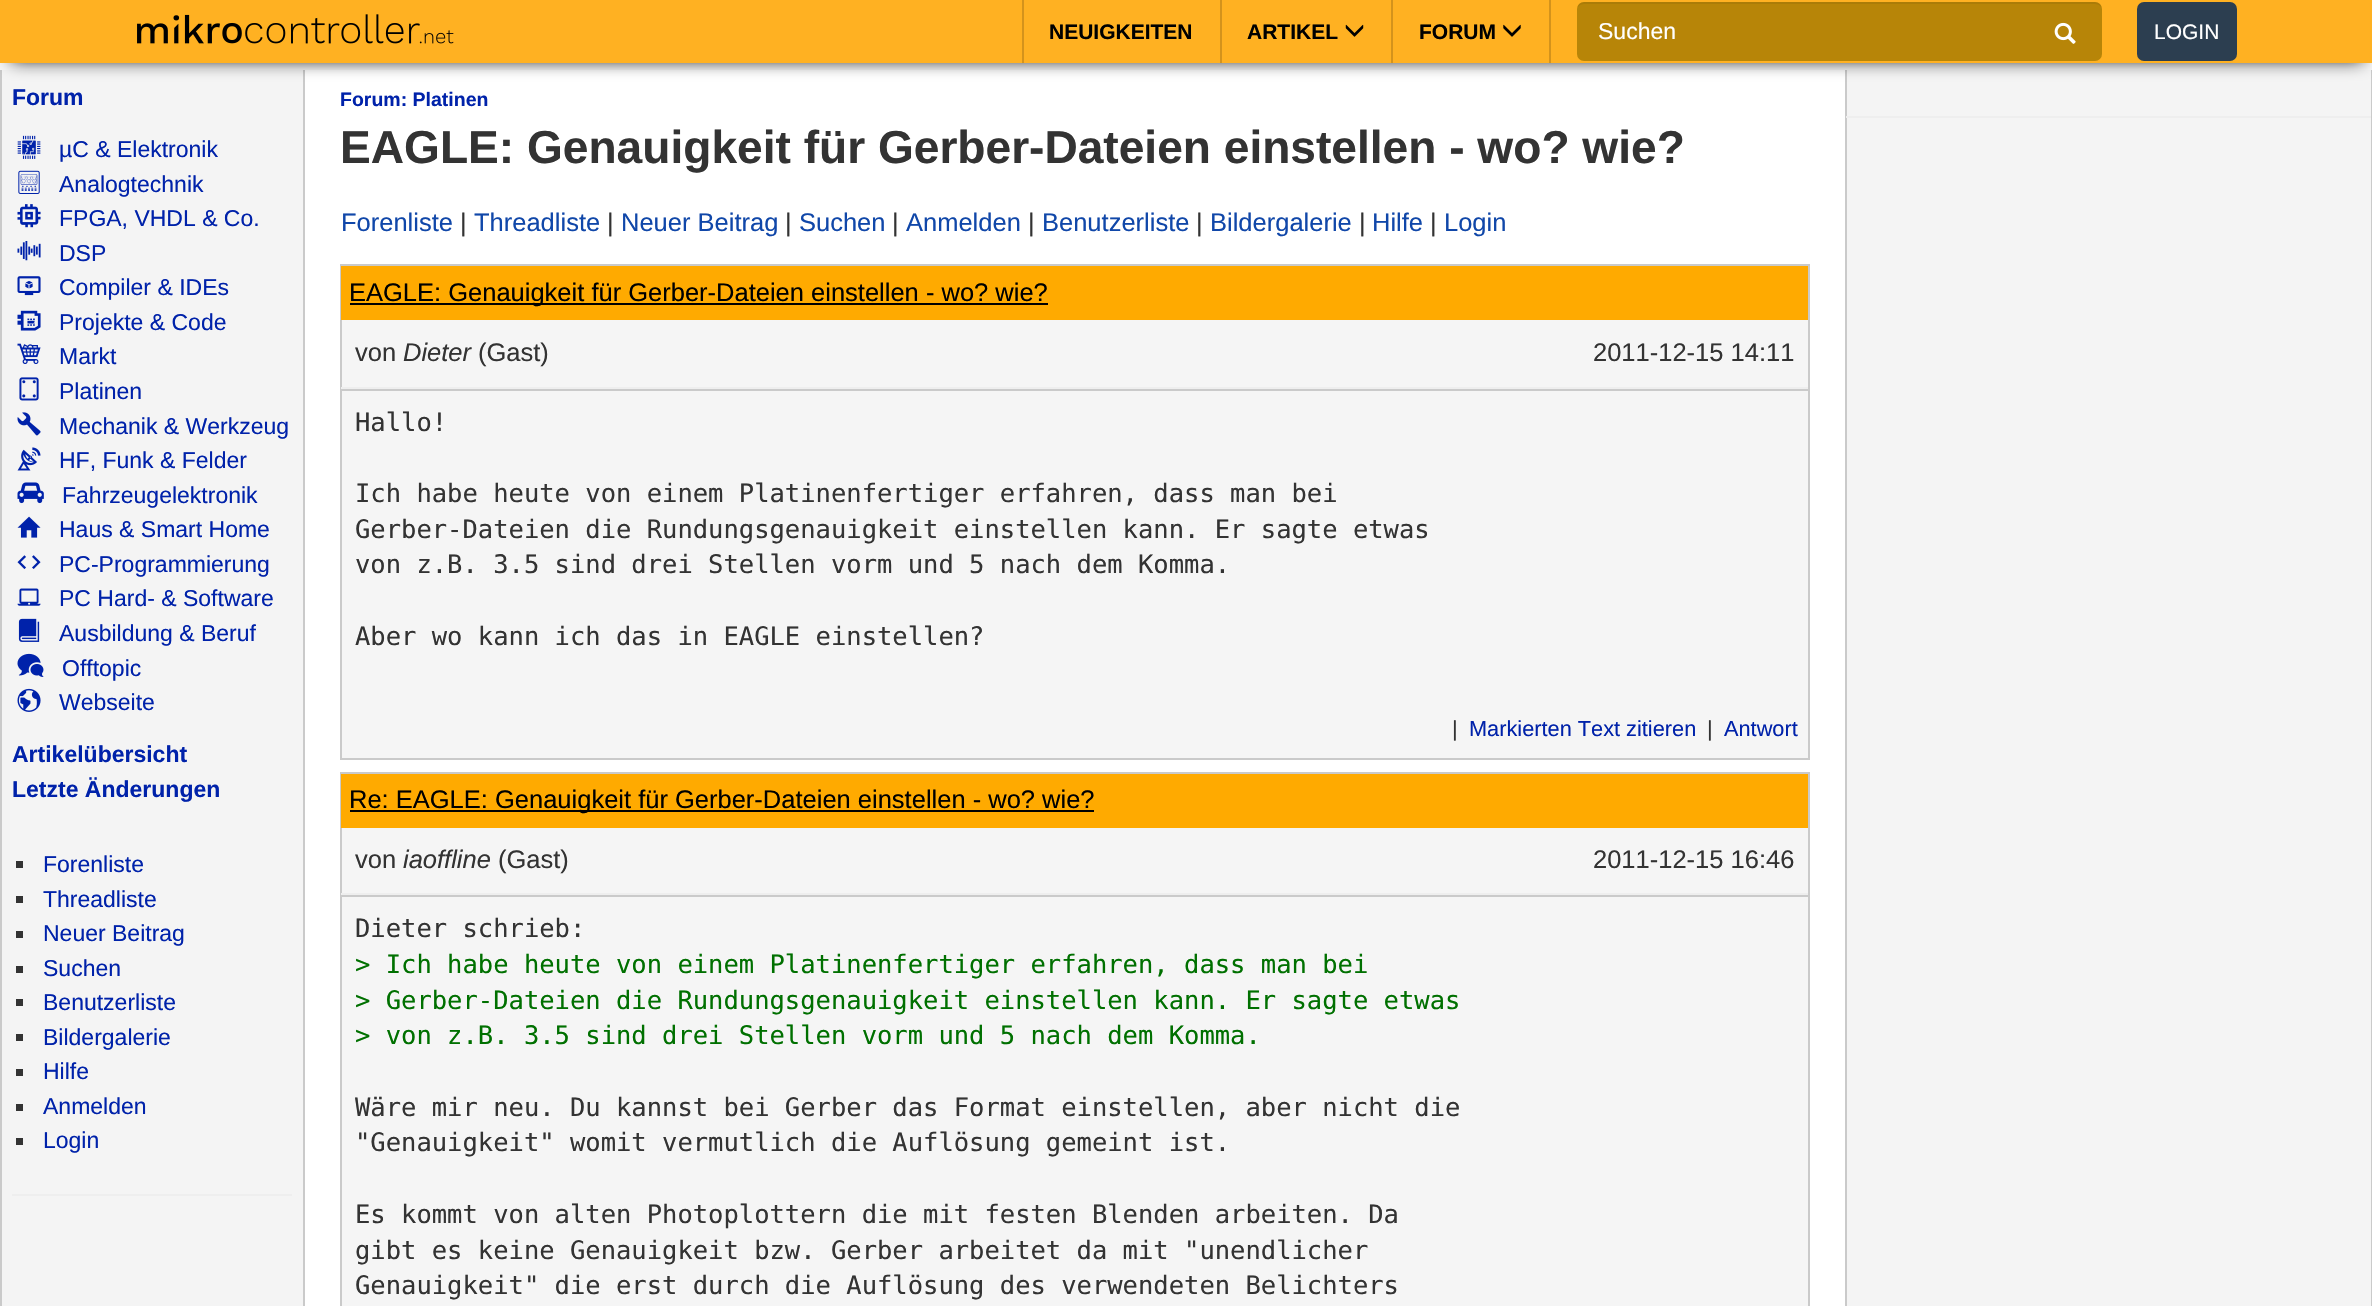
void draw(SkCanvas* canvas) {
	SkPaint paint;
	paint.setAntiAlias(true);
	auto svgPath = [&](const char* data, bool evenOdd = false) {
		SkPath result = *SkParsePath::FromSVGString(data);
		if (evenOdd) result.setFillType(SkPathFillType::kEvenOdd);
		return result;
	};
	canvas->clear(0xfff8f8f8);
	paint.setColor(0xfff4f4f4);
	canvas->drawRect(SkRect::MakeXYWH(2, 70, 301, 1236), paint);
	paint.setColor(0xffcacaca);
	canvas->drawRect(SkRect::MakeXYWH(303, 70, 2, 1236), paint);
	canvas->drawRect(SkRect::MakeXYWH(0, 70, 2, 1236), paint);
	paint.setColor(0xffffffff);
	canvas->drawRect(SkRect::MakeXYWH(305, 70, 1540, 1236), paint);
	paint.setColor(0xfff4f4f4);
	canvas->drawRect(SkRect::MakeXYWH(1847, 70, 524, 1236), paint);
	paint.setColor(0xffcacaca);
	canvas->drawRect(SkRect::MakeXYWH(2371, 70, 1, 1236), paint);
	canvas->drawRect(SkRect::MakeXYWH(1845, 70, 2, 1236), paint);
	paint.setColor(0xff000000);
	paint.setMaskFilter(SkMaskFilter::MakeBlur(kNormal_SkBlurStyle, 9));
	canvas->drawRect(SkRect::MakeXYWH(11, 18, 2352, 42), paint);
	paint.setMaskFilter(nullptr);
	paint.setColor(0xffffb122);
	canvas->drawRect(SkRect::MakeXYWH(0, 0, 2372, 63), paint);
	canvas->drawImageRect(SkImages::DeferredFromEncodedData(SkData::MakeFromFileName("img1.png")), SkRect::MakeXYWH(137, 14, 317, 30), SkSamplingOptions());
	paint.setColor(0xffd4931c);
	canvas->drawRect(SkRect::MakeXYWH(1220, 0, 2, 63), paint);
	canvas->drawRect(SkRect::MakeXYWH(1022, 0, 2, 63), paint);
	SkFont f1(fontMgr->matchFamilyStyle("Liberation Sans", SkFontStyle::Bold()), 21);
	f1.setSubpixel(true);
	paint.setColor(0xff000000);
	canvas->drawString("NEUIGKEITEN", 1049, 39, f1, paint);
	paint.setColor(0xffd4931c);
	canvas->drawRect(SkRect::MakeXYWH(1391, 0, 2, 63), paint);
	paint.setColor(0xff000000);
	canvas->drawString("ARTIKEL", 1247, 39, f1, paint);
	canvas->drawImageRect(SkImages::DeferredFromEncodedData(SkData::MakeFromFileName("img2.png")), SkRect::MakeXYWH(1345, 24, 19, 13), SkSamplingOptions());
	paint.setColor(0xffd4931c);
	canvas->drawRect(SkRect::MakeXYWH(1549, 0, 2, 63), paint);
	paint.setColor(0xff000000);
	canvas->drawString("FORUM", 1419, 39, f1, paint);
	canvas->drawImageRect(SkImages::DeferredFromEncodedData(SkData::MakeFromFileName("img3.png")), SkRect::MakeXYWH(1503, 24, 18, 13), SkSamplingOptions());
	paint.setColor(0xffb78508);
	canvas->drawRoundRect(SkRect::MakeXYWH(1577, 2, 525, 59), 7, 7, paint);
	paint.setColor(0x12000000);
	canvas->drawPath(svgPath("M1584 4H2095C2099 4 2102 7 2102 10C2102 6 2100 2 2095 2H1584C1579 2 1577 6 1577 10C1577 7 1580 4 1584 4Z"), paint);
	SkFont f2(fontMgr->matchFamilyStyle("Liberation Sans", SkFontStyle::Normal()), 23);
	f2.setSubpixel(true);
	paint.setColor(0xffffffff);
	canvas->drawString("Suchen", 1598, 39, f2, paint);
	canvas->drawImageRect(SkImages::DeferredFromEncodedData(SkData::MakeFromFileName("img4.png")), SkRect::MakeXYWH(2054, 22, 22, 22), SkSamplingOptions());
	paint.setColor(0xff2c3e50);
	canvas->drawRoundRect(SkRect::MakeXYWH(2137, 2, 100, 59), 7, 7, paint);
	SkFont f3(fontMgr->matchFamilyStyle("Liberation Sans", SkFontStyle::Normal()), 21);
	f3.setSubpixel(true);
	paint.setColor(0xffffffff);
	canvas->drawString("LOGIN", 2154, 39, f3, paint);
	SkFont f4(fontMgr->matchFamilyStyle("Liberation Sans", SkFontStyle::Bold()), 23);
	f4.setSubpixel(true);
	paint.setColor(0xff0022aa);
	canvas->drawString("Forum", 12, 105, f4, paint);
	canvas->drawImageRect(SkImages::DeferredFromEncodedData(SkData::MakeFromFileName("img5.png")), SkRect::MakeXYWH(17, 135, 24, 24), SkSamplingOptions());
	canvas->drawString("µC & Elektronik", 59, 157, f2, paint);
	canvas->drawImageRect(SkImages::DeferredFromEncodedData(SkData::MakeFromFileName("img6.png")), SkRect::MakeXYWH(18, 170, 22, 24), SkSamplingOptions());
	canvas->drawString("Analogtechnik", 59, 192, f2, paint);
	canvas->drawImageRect(SkImages::DeferredFromEncodedData(SkData::MakeFromFileName("img7.png")), SkRect::MakeXYWH(17, 204, 24, 24), SkSamplingOptions());
	canvas->drawString("FPGA, VHDL & Co.", 59, 226, f2, paint);
	canvas->drawImageRect(SkImages::DeferredFromEncodedData(SkData::MakeFromFileName("img8.png")), SkRect::MakeXYWH(17, 241, 24, 20), SkSamplingOptions());
	canvas->drawString("DSP", 59, 261, f2, paint);
	canvas->drawImageRect(SkImages::DeferredFromEncodedData(SkData::MakeFromFileName("img9.png")), SkRect::MakeXYWH(17, 276, 24, 20), SkSamplingOptions());
	canvas->drawString("Compiler & IDEs", 59, 295, f2, paint);
	canvas->drawImageRect(SkImages::DeferredFromEncodedData(SkData::MakeFromFileName("img10.png")), SkRect::MakeXYWH(17, 310, 24, 21), SkSamplingOptions());
	canvas->drawString("Projekte & Code", 59, 330, f2, paint);
	canvas->drawImageRect(SkImages::DeferredFromEncodedData(SkData::MakeFromFileName("img11.png")), SkRect::MakeXYWH(17, 343, 24, 21), SkSamplingOptions());
	canvas->drawString("Markt", 59, 364, f2, paint);
	canvas->drawImageRect(SkImages::DeferredFromEncodedData(SkData::MakeFromFileName("img12.png")), SkRect::MakeXYWH(19, 377, 20, 24), SkSamplingOptions());
	canvas->drawString("Platinen", 59, 399, f2, paint);
	canvas->drawImageRect(SkImages::DeferredFromEncodedData(SkData::MakeFromFileName("img13.png")), SkRect::MakeXYWH(17, 412, 24, 24), SkSamplingOptions());
	canvas->drawString("Mechanik & Werkzeug", 59, 434, f2, paint);
	canvas->drawImageRect(SkImages::DeferredFromEncodedData(SkData::MakeFromFileName("img14.png")), SkRect::MakeXYWH(17, 447, 24, 24), SkSamplingOptions());
	canvas->drawString("HF, Funk & Felder", 59, 468, f2, paint);
	canvas->drawImageRect(SkImages::DeferredFromEncodedData(SkData::MakeFromFileName("img15.png")), SkRect::MakeXYWH(17, 482, 27, 22), SkSamplingOptions());
	canvas->drawString("Fahrzeugelektronik", 62, 503, f2, paint);
	canvas->drawImageRect(SkImages::DeferredFromEncodedData(SkData::MakeFromFileName("img16.png")), SkRect::MakeXYWH(17, 516, 24, 22), SkSamplingOptions());
	canvas->drawString("Haus & Smart Home", 59, 537, f2, paint);
	canvas->drawImageRect(SkImages::DeferredFromEncodedData(SkData::MakeFromFileName("img17.png")), SkRect::MakeXYWH(17, 555, 24, 14), SkSamplingOptions());
	canvas->drawString("PC-Programmierung", 59, 572, f2, paint);
	canvas->drawImageRect(SkImages::DeferredFromEncodedData(SkData::MakeFromFileName("img18.png")), SkRect::MakeXYWH(17, 588, 24, 18), SkSamplingOptions());
	canvas->drawString("PC Hard- & Software", 59, 606, f2, paint);
	canvas->drawImageRect(SkImages::DeferredFromEncodedData(SkData::MakeFromFileName("img19.png")), SkRect::MakeXYWH(18, 618, 22, 24), SkSamplingOptions());
	canvas->drawString("Ausbildung & Beruf", 59, 641, f2, paint);
	canvas->drawImageRect(SkImages::DeferredFromEncodedData(SkData::MakeFromFileName("img20.png")), SkRect::MakeXYWH(17, 653, 27, 24), SkSamplingOptions());
	canvas->drawString("Offtopic", 62, 676, f2, paint);
	canvas->drawImageRect(SkImages::DeferredFromEncodedData(SkData::MakeFromFileName("img21.png")), SkRect::MakeXYWH(17, 688, 24, 24), SkSamplingOptions());
	canvas->drawString("Webseite", 59, 710, f2, paint);
	canvas->drawString("Artikelübersicht", 12, 762, f4, paint);
	canvas->drawString("Letzte Änderungen", 12, 797, f4, paint);
	paint.setColor(0xff333333);
	canvas->drawRect(SkRect::MakeXYWH(16, 861, 7, 7), paint);
	paint.setColor(0xff0022aa);
	canvas->drawString("Forenliste", 43, 872, f2, paint);
	paint.setColor(0xff333333);
	canvas->drawRect(SkRect::MakeXYWH(16, 896, 7, 7), paint);
	paint.setColor(0xff0022aa);
	canvas->drawString("Threadliste", 43, 907, f2, paint);
	paint.setColor(0xff333333);
	canvas->drawRect(SkRect::MakeXYWH(16, 931, 7, 7), paint);
	paint.setColor(0xff0022aa);
	canvas->drawString("Neuer Beitrag", 43, 941, f2, paint);
	paint.setColor(0xff333333);
	canvas->drawRect(SkRect::MakeXYWH(16, 966, 7, 7), paint);
	paint.setColor(0xff0022aa);
	canvas->drawString("Suchen", 43, 976, f2, paint);
	paint.setColor(0xff333333);
	canvas->drawRect(SkRect::MakeXYWH(16, 999, 7, 7), paint);
	paint.setColor(0xff0022aa);
	canvas->drawString("Benutzerliste", 43, 1010, f2, paint);
	paint.setColor(0xff333333);
	canvas->drawRect(SkRect::MakeXYWH(16, 1034, 7, 7), paint);
	paint.setColor(0xff0022aa);
	canvas->drawString("Bildergalerie", 43, 1045, f2, paint);
	paint.setColor(0xff333333);
	canvas->drawRect(SkRect::MakeXYWH(16, 1069, 7, 7), paint);
	paint.setColor(0xff0022aa);
	canvas->drawString("Hilfe", 43, 1079, f2, paint);
	paint.setColor(0xff333333);
	canvas->drawRect(SkRect::MakeXYWH(16, 1104, 7, 7), paint);
	paint.setColor(0xff0022aa);
	canvas->drawString("Anmelden", 43, 1114, f2, paint);
	paint.setColor(0xff333333);
	canvas->drawRect(SkRect::MakeXYWH(16, 1138, 7, 7), paint);
	paint.setColor(0xff0022aa);
	canvas->drawString("Login", 43, 1148, f2, paint);
	paint.setColor(0xffeeeeee);
	canvas->drawRect(SkRect::MakeXYWH(12, 1194, 280, 2), paint);
	SkFont f5(fontMgr->matchFamilyStyle("Liberation Sans", SkFontStyle::Bold()), 19.5);
	f5.setSubpixel(true);
	paint.setColor(0xff0022aa);
	canvas->drawString("Forum: Platinen", 340, 106, f5, paint);
	SkFont f6(fontMgr->matchFamilyStyle("Liberation Sans", SkFontStyle::Bold()), 46.1);
	f6.setSubpixel(true);
	paint.setColor(0xff333333);
	canvas->drawString("EAGLE: Genauigkeit für Gerber-Dateien einstellen - wo? wie?", 340, 163, f6, paint);
	SkFont f7(fontMgr->matchFamilyStyle("Liberation Sans", SkFontStyle::Normal()), 25.5);
	f7.setSubpixel(true);
	paint.setColor(0xff1047a9);
	canvas->drawString("Forenliste", 341, 231, f7, paint);
	paint.setColor(0xff333333);
	canvas->drawString("|", 460, 231, f7, paint);
	paint.setColor(0xff1047a9);
	canvas->drawString("Threadliste", 474, 231, f7, paint);
	paint.setColor(0xff333333);
	canvas->drawString("|", 607, 231, f7, paint);
	paint.setColor(0xff1047a9);
	canvas->drawString("Neuer Beitrag", 621, 231, f7, paint);
	paint.setColor(0xff333333);
	canvas->drawString("|", 785, 231, f7, paint);
	paint.setColor(0xff1047a9);
	canvas->drawString("Suchen", 799, 231, f7, paint);
	paint.setColor(0xff333333);
	canvas->drawString("|", 892, 231, f7, paint);
	paint.setColor(0xff1047a9);
	canvas->drawString("Anmelden", 906, 231, f7, paint);
	paint.setColor(0xff333333);
	canvas->drawString("|", 1028, 231, f7, paint);
	paint.setColor(0xff1047a9);
	canvas->drawString("Benutzerliste", 1042, 231, f7, paint);
	paint.setColor(0xff333333);
	canvas->drawString("|", 1196, 231, f7, paint);
	paint.setColor(0xff1047a9);
	canvas->drawString("Bildergalerie", 1210, 231, f7, paint);
	paint.setColor(0xff333333);
	canvas->drawString("|", 1359, 231, f7, paint);
	paint.setColor(0xff1047a9);
	canvas->drawString("Hilfe", 1372, 231, f7, paint);
	paint.setColor(0xff333333);
	canvas->drawString("|", 1430, 231, f7, paint);
	paint.setColor(0xff1047a9);
	canvas->drawString("Login", 1444, 231, f7, paint);
	paint.setColor(0xfff5f5f5);
	canvas->drawRect(SkRect::MakeXYWH(342, 320, 1466, 438), paint);
	paint.setStroke(true);
	paint.setStrokeWidth(2);
	paint.setColor(0xffcacaca);
	canvas->drawRect(SkRect::MakeXYWH(341, 265, 1468, 494), paint);
	paint.setStroke(false);
	paint.setColor(0xffffaa00);
	canvas->drawRect(SkRect::MakeXYWH(341, 266, 1467, 54), paint);
	paint.setColor(0xff000000);
	canvas->drawRect(SkRect::MakeXYWH(350, 303, 698, 2), paint);
	canvas->drawString("EAGLE: Genauigkeit für Gerber-Dateien einstellen - wo? wie?", 349, 301, f7, paint);
	paint.setColor(0xff333333);
	canvas->drawString("von", 355, 361, f7, paint);
	SkFont f8(fontMgr->matchFamilyStyle("Liberation Sans", SkFontStyle::Italic()), 25.5);
	f8.setSubpixel(true);
	canvas->drawString("Dieter", 403, 361, f8, paint);
	canvas->drawString("(Gast)", 478, 361, f7, paint);
	canvas->drawString("2011-12-15 14:11", 1593, 361, f7, paint);
	paint.setColor(0xffcacaca);
	canvas->drawRect(SkRect::MakeXYWH(341, 389, 1467, 2), paint);
	paint.setColor(0xffeeeeee);
	canvas->drawRect(SkRect::MakeXYWH(341, 387, 1467, 2), paint);
	SkFont f9(fontMgr->matchFamilyStyle("DejaVu Sans Mono", SkFontStyle::Normal()), 25.5);
	f9.setSubpixel(true);
	paint.setColor(0xff333333);
	canvas->drawString("Hallo!", 355, 431, f9, paint);
	canvas->drawString("Ich habe heute von einem Platinenfertiger erfahren, dass man bei", 355, 502, f9, paint);
	canvas->drawString("Gerber-Dateien die Rundungsgenauigkeit einstellen kann. Er sagte etwas", 355, 538, f9, paint);
	canvas->drawString("von z.B. 3.5 sind drei Stellen vorm und 5 nach dem Komma.", 355, 573, f9, paint);
	canvas->drawString("Aber wo kann ich das in EAGLE einstellen?", 355, 645, f9, paint);
	SkFont f10(fontMgr->matchFamilyStyle("Liberation Sans", SkFontStyle::Normal()), 21.75);
	f10.setSubpixel(true);
	canvas->drawString("|", 1452, 736, f10, paint);
	paint.setColor(0xff0022aa);
	canvas->drawString("Markierten Text zitieren", 1469, 736, f10, paint);
	paint.setColor(0xff333333);
	canvas->drawString("|", 1707, 736, f10, paint);
	paint.setColor(0xff0022aa);
	canvas->drawString("Antwort", 1724, 736, f10, paint);
	paint.setColor(0xfff5f5f5);
	canvas->drawRect(SkRect::MakeXYWH(342, 828, 1466, 478), paint);
	paint.setStroke(true);
	paint.setColor(0xffcacaca);
	canvas->drawRect(SkRect::MakeXYWH(341, 773, 1468, 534), paint);
	paint.setStroke(false);
	paint.setColor(0xffffaa00);
	canvas->drawRect(SkRect::MakeXYWH(341, 774, 1467, 54), paint);
	paint.setColor(0xff000000);
	canvas->drawRect(SkRect::MakeXYWH(350, 810, 744, 2), paint);
	canvas->drawString("Re: EAGLE: Genauigkeit für Gerber-Dateien einstellen - wo? wie?", 349, 808, f7, paint);
	paint.setColor(0xff333333);
	canvas->drawString("von", 355, 868, f7, paint);
	canvas->drawString("iaoffline", 403, 868, f8, paint);
	canvas->drawString("(Gast)", 498, 868, f7, paint);
	canvas->drawString("2011-12-15 16:46", 1593, 868, f7, paint);
	paint.setColor(0xffcacaca);
	canvas->drawRect(SkRect::MakeXYWH(341, 895, 1467, 2), paint);
	paint.setColor(0xffeeeeee);
	canvas->drawRect(SkRect::MakeXYWH(341, 893, 1467, 2), paint);
	paint.setColor(0xff333333);
	canvas->drawString("Dieter schrieb:", 355, 937, f9, paint);
	paint.setColor(0xff007000);
	canvas->drawString("> Ich habe heute von einem Platinenfertiger erfahren, dass man bei", 355, 973, f9, paint);
	canvas->drawString("> Gerber-Dateien die Rundungsgenauigkeit einstellen kann. Er sagte etwas", 355, 1009, f9, paint);
	canvas->drawString("> von z.B. 3.5 sind drei Stellen vorm und 5 nach dem Komma.", 355, 1044, f9, paint);
	paint.setColor(0xff333333);
	canvas->drawString("Wäre mir neu. Du kannst bei Gerber das Format einstellen, aber nicht die", 355, 1116, f9, paint);
	canvas->drawString("\"Genauigkeit\" womit vermutlich die Auflösung gemeint ist.", 355, 1151, f9, paint);
	canvas->drawString("Es kommt von alten Photoplottern die mit festen Blenden arbeiten. Da", 355, 1223, f9, paint);
	canvas->drawString("gibt es keine Genauigkeit bzw. Gerber arbeitet da mit \"unendlicher", 355, 1259, f9, paint);
	canvas->drawString("Genauigkeit\" die erst durch die Auflösung des verwendeten Belichters", 355, 1294, f9, paint);
	paint.setColor(0xffeeeeee);
	canvas->drawRect(SkRect::MakeXYWH(1846, 116, 525, 2), paint);
}
